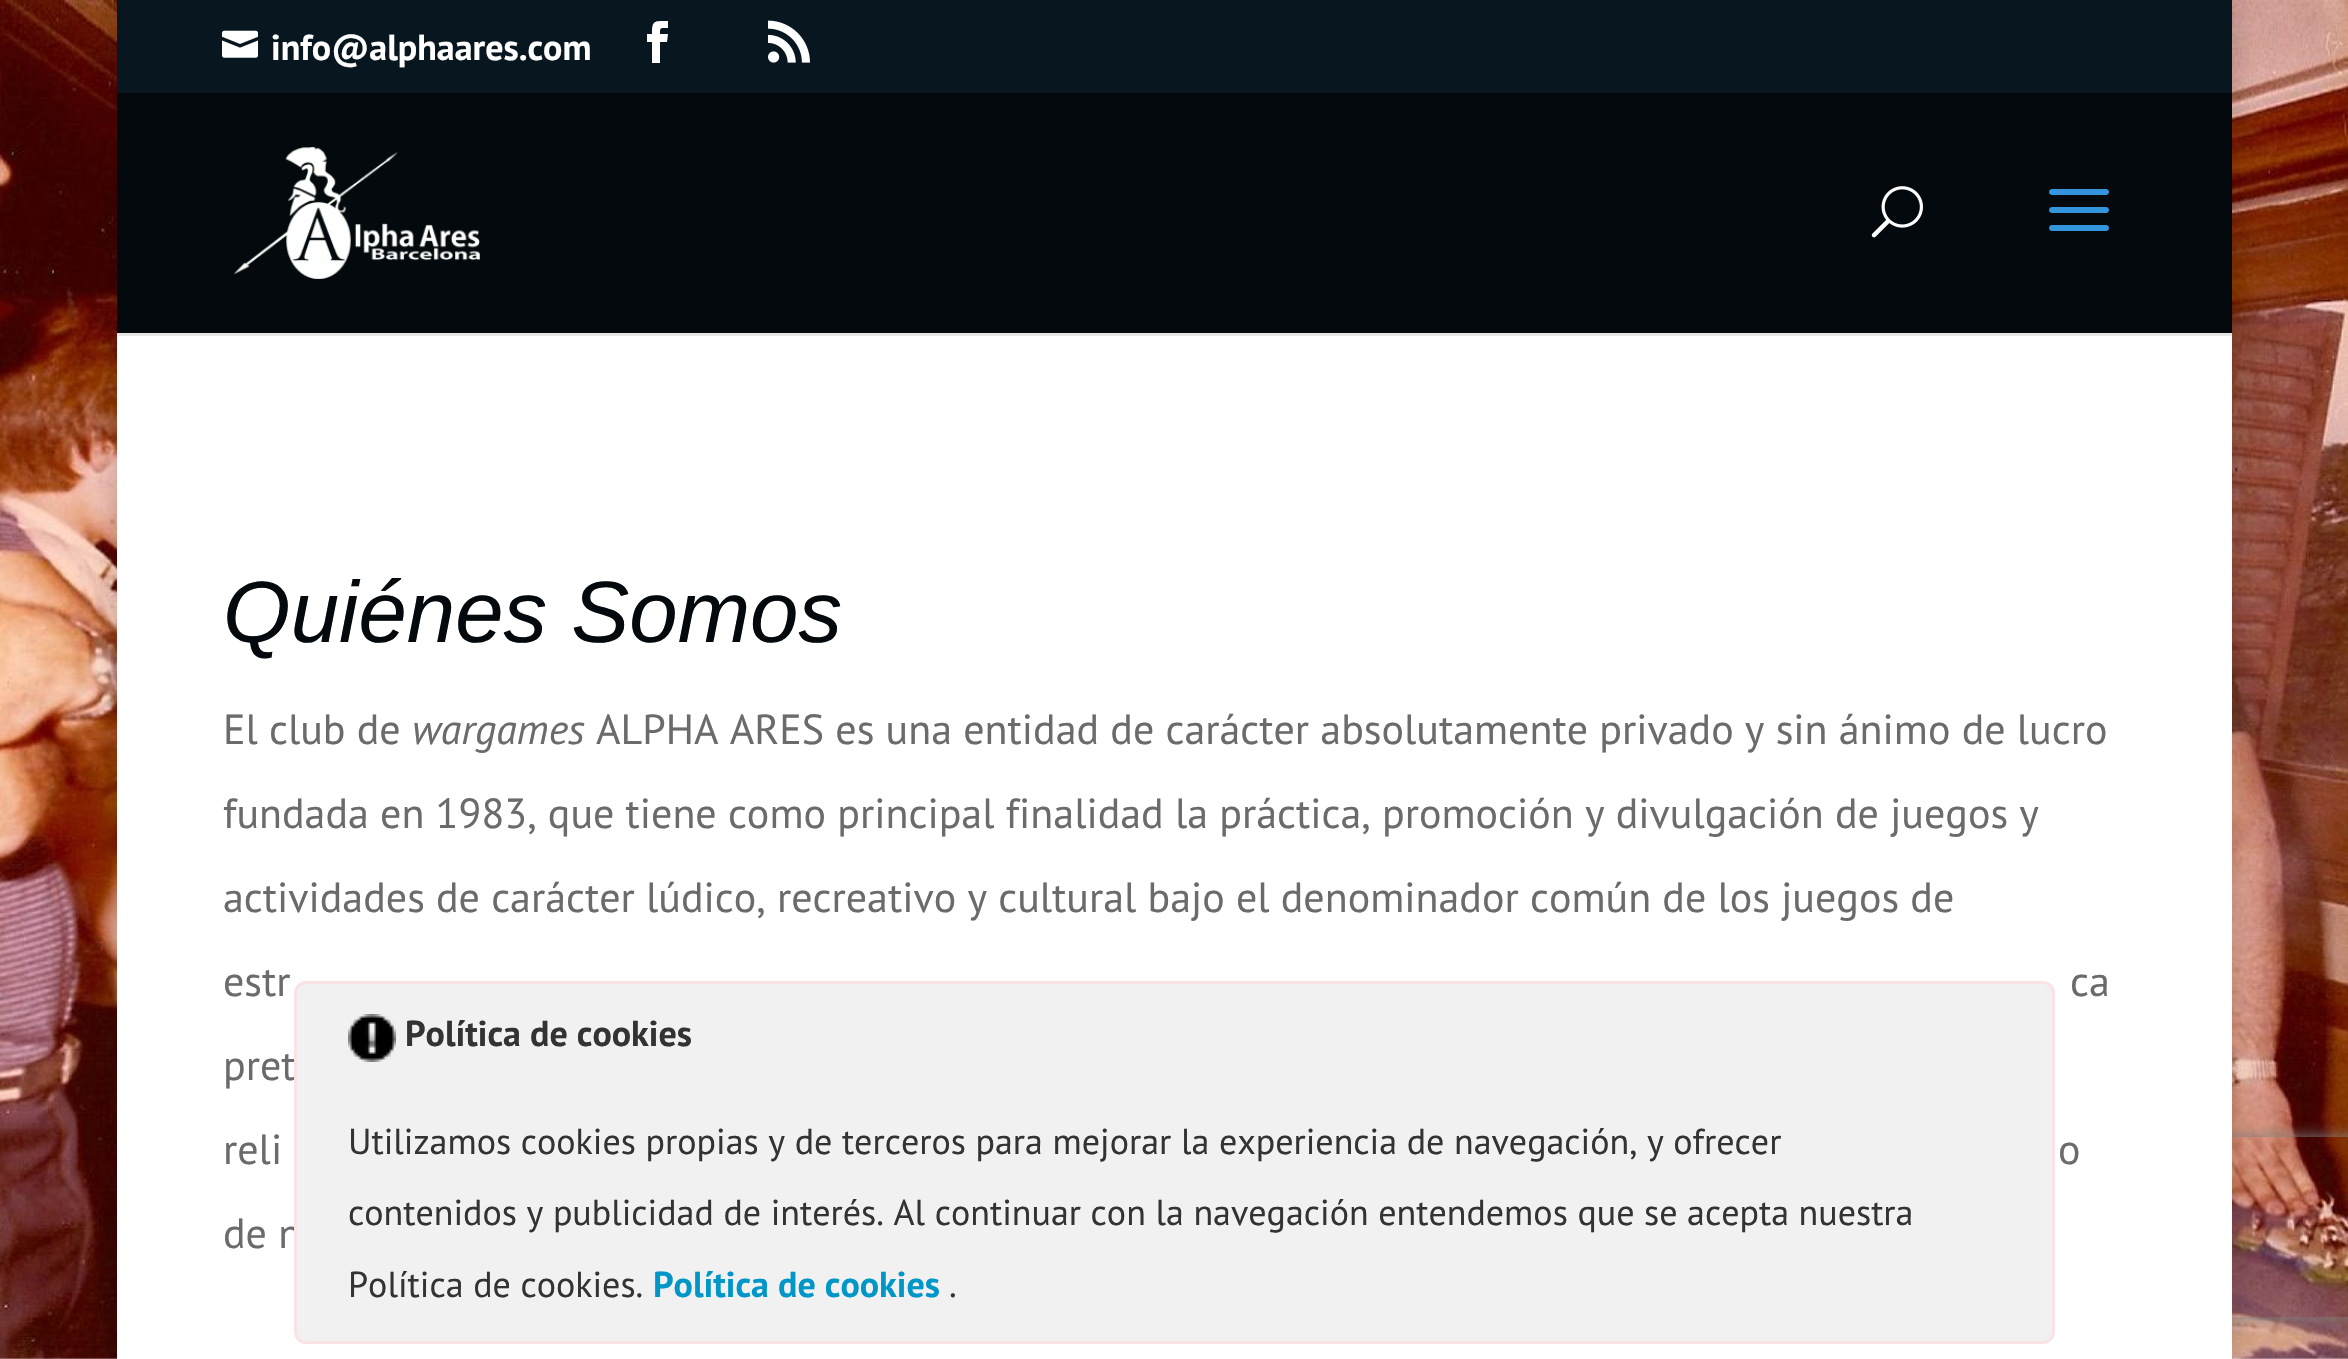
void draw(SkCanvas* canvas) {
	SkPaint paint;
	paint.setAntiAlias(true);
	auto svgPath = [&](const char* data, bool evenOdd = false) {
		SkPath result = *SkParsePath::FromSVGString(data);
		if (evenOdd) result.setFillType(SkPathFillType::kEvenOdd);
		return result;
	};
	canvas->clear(0xffffffff);
	canvas->drawImageRect(SkImages::DeferredFromEncodedData(SkData::MakeFromFileName("img1.png")), SkRect::MakeXYWH(0, 0, 2348, 1359), SkSamplingOptions());
	paint.setColor(0x33000000);
	paint.setMaskFilter(SkMaskFilter::MakeBlur(kNormal_SkBlurStyle, 15));
	canvas->drawRect(SkRect::MakeXYWH(117, 0, 2115, 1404), paint);
	paint.setMaskFilter(nullptr);
	paint.setColor(0xff081620);
	canvas->drawRect(SkRect::MakeXYWH(117, 0, 2115, 93), paint);
	canvas->drawImageRect(SkImages::DeferredFromEncodedData(SkData::MakeFromFileName("img2.png")), SkRect::MakeXYWH(222, 30, 36, 28), SkSamplingOptions());
	SkFont f1(fontMgr->matchFamilyStyle("PT Sans", SkFontStyle::Bold()), 36);
	f1.setSubpixel(true);
	paint.setColor(0xffffffff);
	canvas->drawString("info@alphaares.com", 271, 60, f1, paint);
	canvas->drawPath(svgPath("M652 63H660V42H667L668 34H660C660 27 660 28 668 28V21C654 21 652 20 652 34H647V42H652Z"), paint);
	canvas->drawImageRect(SkImages::DeferredFromEncodedData(SkData::MakeFromFileName("img3.png")), SkRect::MakeXYWH(768, 20, 42, 43), SkSamplingOptions());
	paint.setColor(0xffe6e6e6);
	canvas->drawRect(SkRect::MakeXYWH(117, 333, 2115, 3), paint);
	paint.setColor(0xff04090d);
	canvas->drawRect(SkRect::MakeXYWH(117, 93, 2115, 240), paint);
	canvas->drawImageRect(SkImages::DeferredFromEncodedData(SkData::MakeFromFileName("img4.png")), SkRect::MakeXYWH(234, 147, 246, 132), SkSamplingOptions());
	canvas->drawImageRect(SkImages::DeferredFromEncodedData(SkData::MakeFromFileName("img5.png")), SkRect::MakeXYWH(1871, 186, 52, 52), SkSamplingOptions());
	canvas->drawImageRect(SkImages::DeferredFromEncodedData(SkData::MakeFromFileName("img6.png")), SkRect::MakeXYWH(2049, 189, 60, 42), SkSamplingOptions());
	canvas->save();
	canvas->clipPath(svgPath("M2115 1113H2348V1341H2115ZM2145 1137H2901C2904.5 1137 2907 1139.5 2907 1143V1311C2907 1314.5 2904.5 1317 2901 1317H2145C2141.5 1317 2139 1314.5 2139 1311V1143C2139 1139.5 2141.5 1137 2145 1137Z", true), true);
	paint.setColor(0xff808080);
	paint.setMaskFilter(SkMaskFilter::MakeBlur(kNormal_SkBlurStyle, 7.5));
	canvas->drawRoundRect(SkRect::MakeXYWH(2139, 1137, 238, 180), 6, 6, paint);
	paint.setMaskFilter(nullptr);
	canvas->restore();
	paint.setColor(0xffffffff);
	canvas->drawRect(SkRect::MakeXYWH(117, 336, 2115, 1023), paint);
	SkFont f2(fontMgr->matchFamilyStyle("Liberation Sans", SkFontStyle::Italic()), 87);
	f2.setSubpixel(true);
	paint.setColor(0xff04090d);
	canvas->drawString("Quiénes Somos", 223, 642, f2, paint);
	SkFont f3(fontMgr->matchFamilyStyle("PT Sans", SkFontStyle::Normal()), 42);
	f3.setSubpixel(true);
	paint.setColor(0xff6b6b6b);
	canvas->drawString("El club de", 223, 744, f3, paint);
	SkFont f4(fontMgr->matchFamilyStyle("PT Sans", SkFontStyle::Italic()), 42);
	f4.setSubpixel(true);
	canvas->drawString("wargames", 412, 744, f4, paint);
	canvas->drawString("ALPHA ARES es una entidad de carácter absolutamente privado y sin ánimo de lucro", 596, 744, f3, paint);
	canvas->drawString("fundada en 1983, que tiene como principal finalidad la práctica, promoción y divulgación de juegos y", 223, 828, f3, paint);
	canvas->drawString("actividades de carácter lúdico, recreativo y cultural bajo el denominador común de los juegos de", 223, 912, f3, paint);
	canvas->drawString("estr", 223, 996, f3, paint);
	canvas->drawString("ca", 2070, 996, f3, paint);
	canvas->drawString("pret", 223, 1080, f3, paint);
	canvas->drawString("reli", 223, 1164, f3, paint);
	canvas->drawString("o", 2058, 1164, f3, paint);
	canvas->drawString("de n", 223, 1248, f3, paint);
	paint.setColor(0xfff1f1f1);
	canvas->drawRoundRect(SkRect::MakeXYWH(295.5, 982.5, 1758, 360), 10.5, 10.5, paint);
	paint.setStroke(true);
	paint.setStrokeWidth(3);
	paint.setColor(0xfffae3e5);
	canvas->drawRoundRect(SkRect::MakeXYWH(295.5, 982.5, 1758, 360), 10.5, 10.5, paint);
	canvas->drawImageRect(SkImages::DeferredFromEncodedData(SkData::MakeFromFileName("img7.png")), SkRect::MakeXYWH(348, 1014, 48, 48), SkSamplingOptions());
	paint.setStroke(false);
	paint.setColor(0xff333333);
	canvas->drawString("Política de cookies", 405, 1046, f1, paint);
	SkFont f5(fontMgr->matchFamilyStyle("PT Sans", SkFontStyle::Normal()), 36);
	f5.setSubpixel(true);
	canvas->drawString("Utilizamos cookies propias y de terceros para mejorar la experiencia de navegación, y ofrecer", 348, 1154, f5, paint);
	canvas->drawString("contenidos y publicidad de interés. Al continuar con la navegación entendemos que se acepta nuestra", 348, 1225, f5, paint);
	canvas->drawString("Política de cookies.", 348, 1297, f5, paint);
	paint.setColor(0xff0097c8);
	canvas->drawString("Política de cookies", 653, 1297, f1, paint);
	paint.setColor(0xff333333);
	canvas->drawString(".", 949, 1297, f5, paint);
}
